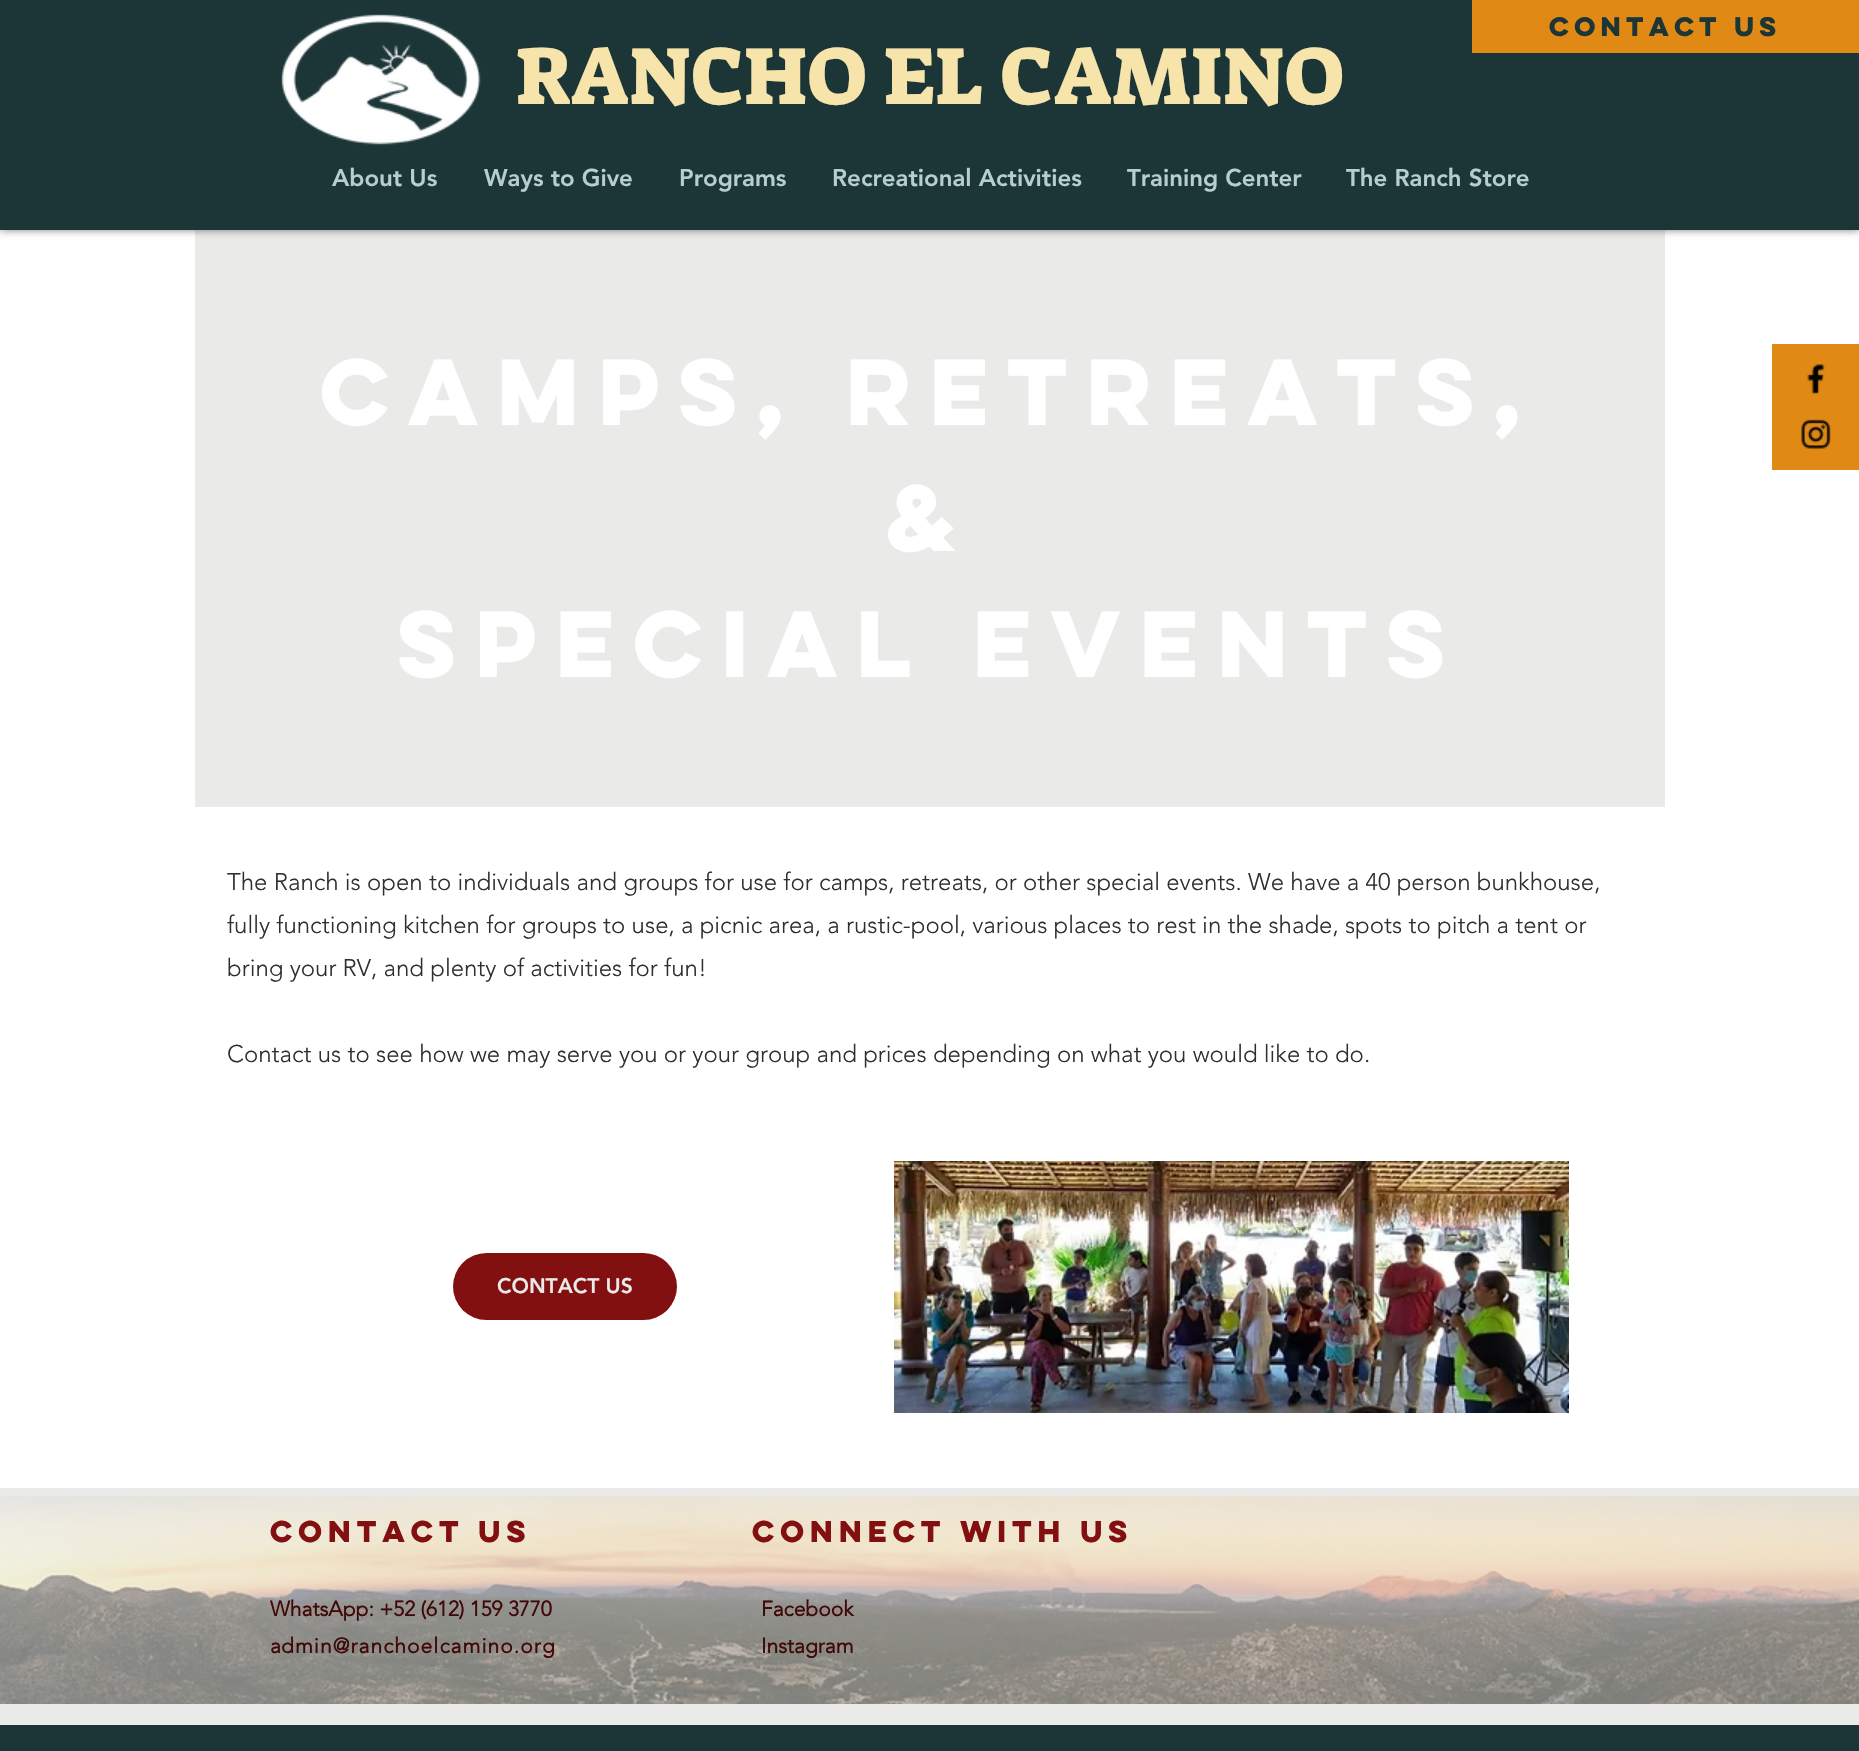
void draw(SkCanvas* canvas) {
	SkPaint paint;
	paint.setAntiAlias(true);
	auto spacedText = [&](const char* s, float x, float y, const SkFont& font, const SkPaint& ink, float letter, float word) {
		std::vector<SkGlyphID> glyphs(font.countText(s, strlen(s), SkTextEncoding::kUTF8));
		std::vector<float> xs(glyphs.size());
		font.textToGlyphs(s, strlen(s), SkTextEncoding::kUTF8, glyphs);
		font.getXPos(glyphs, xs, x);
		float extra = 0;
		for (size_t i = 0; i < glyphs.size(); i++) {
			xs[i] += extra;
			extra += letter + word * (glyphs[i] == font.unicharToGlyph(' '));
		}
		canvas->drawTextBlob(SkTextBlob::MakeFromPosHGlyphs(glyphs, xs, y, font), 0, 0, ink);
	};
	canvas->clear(0xffffffff);
	paint.setColor(0xffeaeae8);
	canvas->drawRect(SkRect::MakeXYWH(195, 230, 1470, 577), paint);
	paint.setColor(0x80000000);
	paint.setMaskFilter(SkMaskFilter::MakeBlur(kNormal_SkBlurStyle, 4));
	canvas->drawRect(SkRect::MakeXYWH(0, 0, 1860, 230), paint);
	paint.setMaskFilter(nullptr);
	paint.setColor(0xff1c3638);
	canvas->drawRect(SkRect::MakeXYWH(0, 0, 1859, 230), paint);
	paint.setColor(0xffe08a15);
	canvas->drawRect(SkRect::MakeXYWH(1472, 0, 387, 53), paint);
	SkFont f1(fontMgr->matchFamilyStyle("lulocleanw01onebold", SkFontStyle::Bold()), 24);
	f1.setSubpixel(true);
	paint.setColor(0xff1c3638);
	canvas->drawString("CONTACT US", 1549, 36, f1, paint);
	paint.setColor(0xffe08a15);
	canvas->drawRect(SkRect::MakeXYWH(1772, 344, 87, 126), paint);
	canvas->drawImageRect(SkImages::DeferredFromEncodedData(SkData::MakeFromFileName("img1.png")), SkRect::MakeXYWH(1807, 364, 18, 30), SkSamplingOptions());
	canvas->drawImageRect(SkImages::DeferredFromEncodedData(SkData::MakeFromFileName("img2.png")), SkRect::MakeXYWH(1801, 419, 30, 30), SkSamplingOptions());
	canvas->drawImageRect(SkImages::DeferredFromEncodedData(SkData::MakeFromFileName("img3.png")), SkRect::MakeXYWH(281, 14, 200, 131), SkSamplingOptions());
	SkFont f2(fontMgr->matchFamilyStyle("Suez One", SkFontStyle::Normal()), 82.5);
	f2.setSubpixel(true);
	paint.setColor(0xfff7e4ab);
	canvas->drawString("RANCHO EL CAMINO", 515, 104, f2, paint);
	SkFont f3(fontMgr->matchFamilyStyle("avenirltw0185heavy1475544", SkFontStyle(900, SkFontStyle::kNormal_Width, SkFontStyle::kUpright_Slant)), 24);
	f3.setSubpixel(true);
	paint.setColor(0xffb6ced0);
	canvas->drawString("About Us", 332, 186, f3, paint);
	canvas->drawString("Ways to Give", 484, 186, f3, paint);
	canvas->drawString("Programs", 679, 186, f3, paint);
	canvas->drawString("Recreational Activities", 832, 186, f3, paint);
	canvas->drawString("Training Center", 1127, 186, f3, paint);
	canvas->drawString("The Ranch Store", 1346, 186, f3, paint);
	SkFont f4(fontMgr->matchFamilyStyle("lulocleanw01onebold", SkFontStyle::Bold()), 84);
	f4.setSubpixel(true);
	paint.setColor(0xffffffff);
	canvas->drawString("Camps, retreats,", 320, 425, f4, paint);
	canvas->drawString("&", 886, 551, f4, paint);
	canvas->drawString("special events", 397, 677, f4, paint);
	SkFont f5(fontMgr->matchFamilyStyle("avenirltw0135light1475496", SkFontStyle(300, SkFontStyle::kNormal_Width, SkFontStyle::kUpright_Slant)), 24);
	f5.setSubpixel(true);
	paint.setColor(0xff2f2f2e);
	canvas->drawString("The Ranch is open to individuals and groups for use for camps, retreats, or other special events. We have a 40 person bunkhouse,", 227, 890, f5, paint);
	canvas->drawString("fully functioning kitchen for groups to use, a picnic area, a rustic-pool, various places to rest in the shade, spots to pitch a tent or", 227, 933, f5, paint);
	canvas->drawString("bring your RV, and plenty of activities for fun!", 227, 976, f5, paint);
	canvas->drawString("Contact us to see how we may serve you or your group and prices depending on what you would like to do.", 227, 1062, f5, paint);
	paint.setColor(0xff821011);
	canvas->drawRoundRect(SkRect::MakeXYWH(453, 1253, 224, 67), 33.5, 33.5, paint);
	SkFont f6(fontMgr->matchFamilyStyle("avenirltw0185heavy1475544", SkFontStyle(900, SkFontStyle::kNormal_Width, SkFontStyle::kUpright_Slant)), 21);
	f6.setSubpixel(true);
	paint.setColor(0xffeaeae8);
	canvas->drawString("CONTACT US", 497, 1293, f6, paint);
	canvas->drawImageRect(SkImages::DeferredFromEncodedData(SkData::MakeFromFileName("img4.png")), SkRect::MakeXYWH(894, 1161, 675, 252), SkSamplingOptions());
	canvas->drawRect(SkRect::MakeXYWH(0, 1488, 1859, 237), paint);
	canvas->drawImageRect(SkImages::DeferredFromEncodedData(SkData::MakeFromFileName("img5.png")), SkRect::MakeXYWH(0, 1496, 1859, 208), SkSamplingOptions());
	SkFont f7(fontMgr->matchFamilyStyle("lulocleanw01onebold", SkFontStyle::Bold()), 27);
	f7.setSubpixel(true);
	paint.setColor(0xff821011);
	canvas->drawString("contact us", 270, 1542, f7, paint);
	canvas->drawString("connect with us", 752, 1542, f7, paint);
	SkFont f8(fontMgr->matchFamilyStyle("avenirltw0135light1475496", SkFontStyle::Bold()), 21);
	f8.setSubpixel(true);
	paint.setColor(0xff410809);
	canvas->drawString("WhatsApp: +52 (612) 159 3770", 270, 1616, f8, paint);
	canvas->drawString("a", 270, 1653, f8, paint);
	spacedText("dmin@ranchoelcamino.org", 281, 1653, f8, paint, 1.05, 0);
	canvas->drawString("Facebook", 761, 1616, f8, paint);
	canvas->drawString("Instagram", 761, 1653, f8, paint);
	paint.setColor(0xff1c3638);
	canvas->drawRect(SkRect::MakeXYWH(0, 1725, 1859, 26), paint);
}
